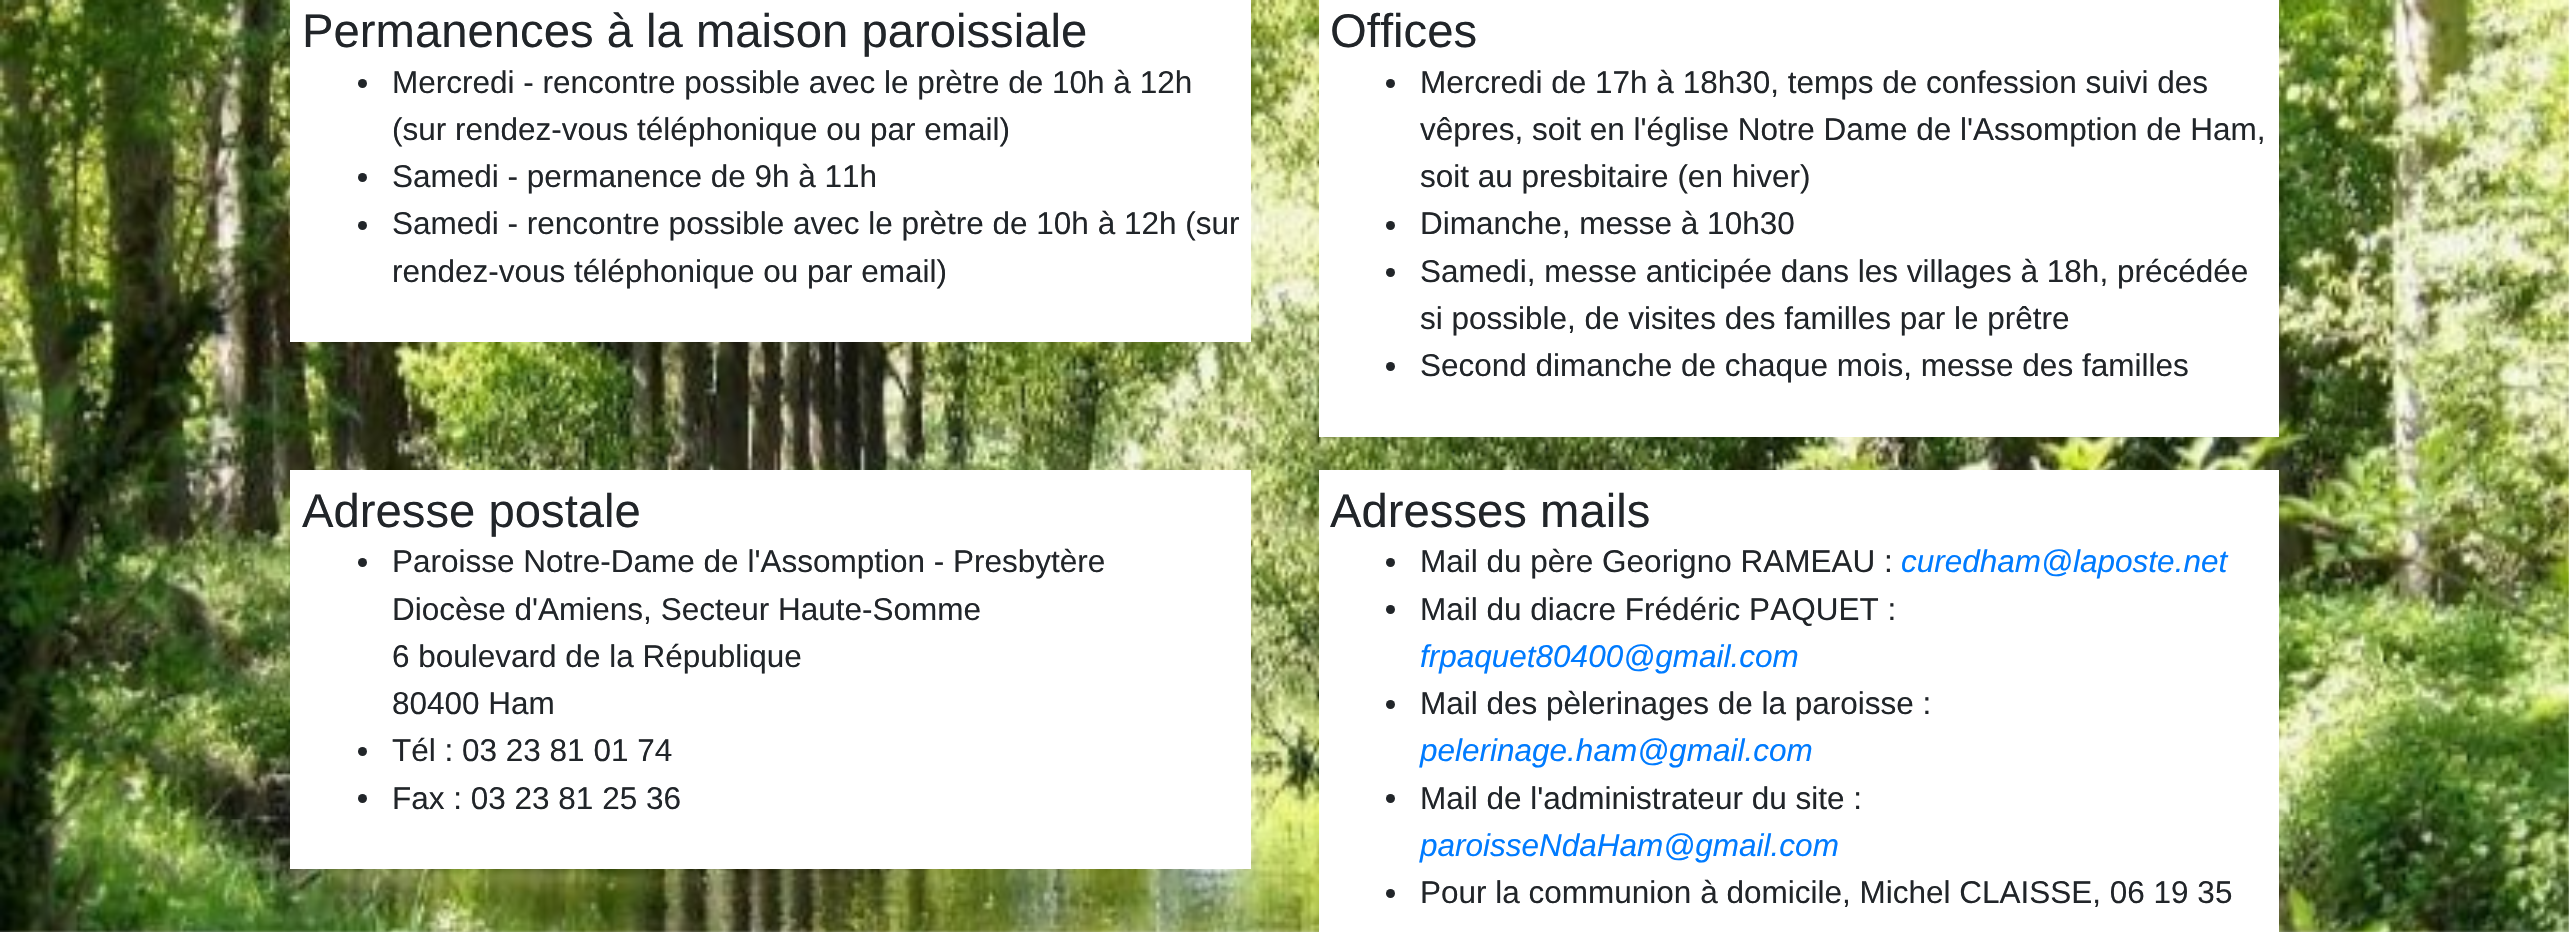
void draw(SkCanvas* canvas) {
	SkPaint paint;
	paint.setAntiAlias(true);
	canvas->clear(0xffffffff);
	canvas->drawImageRect(SkImages::DeferredFromEncodedData(SkData::MakeFromFileName("img1.png")), SkRect::MakeXYWH(0, 0, 2569, 932), SkSamplingOptions());
	paint.setColor(0xffffffff);
	canvas->drawRect(SkRect::MakeXYWH(290, 0, 961, 342), paint);
	SkFont f1(fontMgr->matchFamilyStyle("Liberation Sans", SkFontStyle::Normal()), 47.25);
	f1.setSubpixel(true);
	paint.setColor(0xff212529);
	canvas->drawString("Permanences à la maison paroissiale", 302, 47, f1, paint);
	canvas->drawCircle(362.5, 83.5, 4.5, paint);
	SkFont f2(fontMgr->matchFamilyStyle("Liberation Sans", SkFontStyle::Normal()), 31.5);
	f2.setSubpixel(true);
	canvas->drawString("Mercredi - rencontre possible avec le prètre de 10h à 12h", 392, 93, f2, paint);
	canvas->drawString("(sur rendez-vous téléphonique ou par email)", 392, 140, f2, paint);
	canvas->drawCircle(362.5, 177.5, 4.5, paint);
	canvas->drawString("Samedi - permanence de 9h à 11h", 392, 187, f2, paint);
	canvas->drawCircle(362.5, 225.5, 4.5, paint);
	canvas->drawString("Samedi - rencontre possible avec le prètre de 10h à 12h (sur", 392, 234, f2, paint);
	canvas->drawString("rendez-vous téléphonique ou par email)", 392, 282, f2, paint);
	paint.setColor(0xffffffff);
	canvas->drawRect(SkRect::MakeXYWH(1319, 0, 960, 437), paint);
	paint.setColor(0xff212529);
	canvas->drawString("Offices", 1330, 47, f1, paint);
	canvas->drawCircle(1390.5, 83.5, 4.5, paint);
	canvas->drawString("Mercredi de 17h à 18h30, temps de confession suivi des", 1420, 93, f2, paint);
	canvas->drawString("vêpres, soit en l'église Notre Dame de l'Assomption de Ham,", 1420, 140, f2, paint);
	canvas->drawString("soit au presbitaire (en hiver)", 1420, 187, f2, paint);
	canvas->drawCircle(1390.5, 225.5, 4.5, paint);
	canvas->drawString("Dimanche, messe à 10h30", 1420, 234, f2, paint);
	canvas->drawCircle(1390.5, 272.5, 4.5, paint);
	canvas->drawString("Samedi, messe anticipée dans les villages à 18h, précédée", 1420, 282, f2, paint);
	canvas->drawString("si possible, de visites des familles par le prêtre", 1420, 329, f2, paint);
	canvas->drawCircle(1390.5, 366.5, 4.5, paint);
	canvas->drawString("Second dimanche de chaque mois, messe des familles", 1420, 376, f2, paint);
	paint.setColor(0xffffffff);
	canvas->drawRect(SkRect::MakeXYWH(290, 470, 961, 399), paint);
	paint.setColor(0xff212529);
	canvas->drawString("Adresse postale", 302, 527, f1, paint);
	canvas->drawCircle(362.5, 562.5, 4.5, paint);
	canvas->drawString("Paroisse Notre-Dame de l'Assomption - Presbytère", 392, 572, f2, paint);
	canvas->drawString("Diocèse d'Amiens, Secteur Haute-Somme", 392, 620, f2, paint);
	canvas->drawString("6 boulevard de la République", 392, 667, f2, paint);
	canvas->drawString("80400 Ham", 392, 714, f2, paint);
	canvas->drawCircle(362.5, 751.5, 4.5, paint);
	canvas->drawString("Tél : 03 23 81 01 74", 392, 761, f2, paint);
	canvas->drawCircle(362.5, 798.5, 4.5, paint);
	canvas->drawString("Fax : 03 23 81 25 36", 392, 809, f2, paint);
	paint.setColor(0xffffffff);
	canvas->drawRect(SkRect::MakeXYWH(1319, 470, 960, 462), paint);
	paint.setColor(0xff212529);
	canvas->drawString("Adresses mails", 1330, 527, f1, paint);
	canvas->drawCircle(1390.5, 562.5, 4.5, paint);
	canvas->drawString("Mail du père Georigno RAMEAU :", 1420, 572, f2, paint);
	SkFont f3(fontMgr->matchFamilyStyle("Liberation Sans", SkFontStyle::Italic()), 31.5);
	f3.setSubpixel(true);
	paint.setColor(0xff007bff);
	canvas->drawString("curedham@laposte.net", 1901, 572, f3, paint);
	paint.setColor(0xff212529);
	canvas->drawCircle(1390.5, 609.5, 4.5, paint);
	canvas->drawString("Mail du diacre Frédéric PAQUET :", 1420, 620, f2, paint);
	paint.setColor(0xff007bff);
	canvas->drawString("frpaquet80400@gmail.com", 1420, 667, f3, paint);
	paint.setColor(0xff212529);
	canvas->drawCircle(1390.5, 704.5, 4.5, paint);
	canvas->drawString("Mail des pèlerinages de la paroisse :", 1420, 714, f2, paint);
	paint.setColor(0xff007bff);
	canvas->drawString("pelerinage.ham@gmail.com", 1420, 761, f3, paint);
	paint.setColor(0xff212529);
	canvas->drawCircle(1390.5, 798.5, 4.5, paint);
	canvas->drawString("Mail de l'administrateur du site :", 1420, 809, f2, paint);
	paint.setColor(0xff007bff);
	canvas->drawString("paroisseNdaHam@gmail.com", 1420, 856, f3, paint);
	paint.setColor(0xff212529);
	canvas->drawCircle(1390.5, 893.5, 4.5, paint);
	canvas->drawString("Pour la communion à domicile, Michel CLAISSE, 06 19 35", 1420, 903, f2, paint);
}
